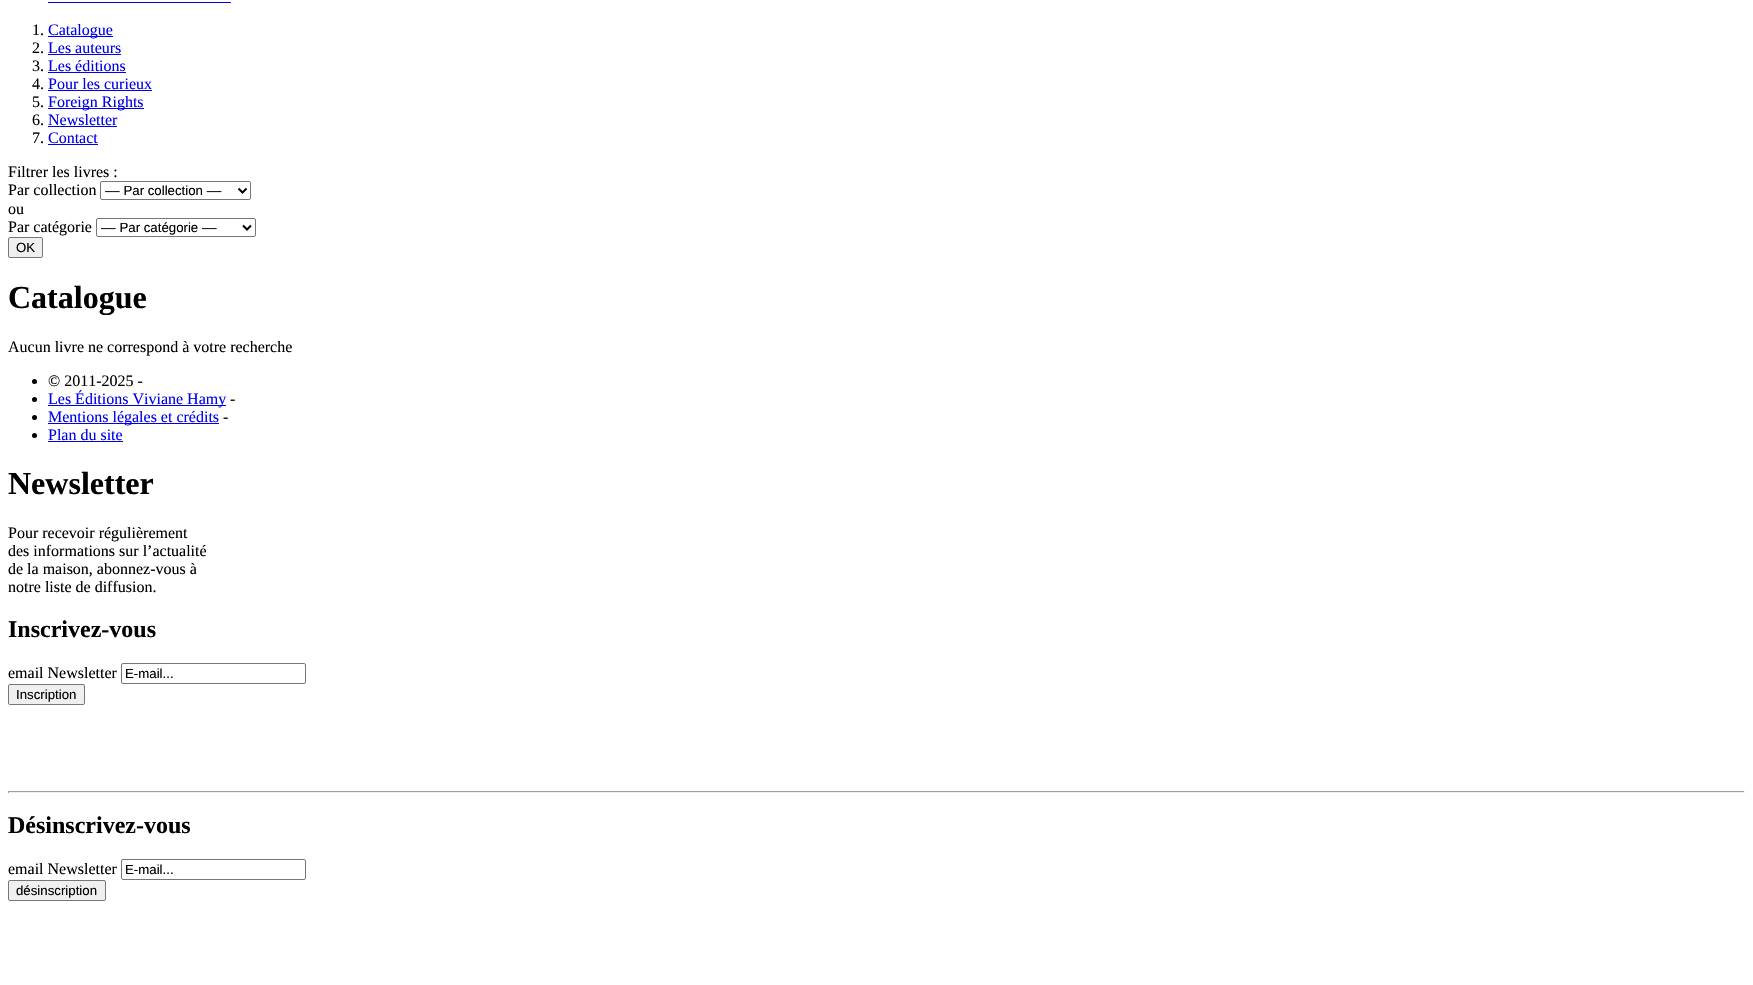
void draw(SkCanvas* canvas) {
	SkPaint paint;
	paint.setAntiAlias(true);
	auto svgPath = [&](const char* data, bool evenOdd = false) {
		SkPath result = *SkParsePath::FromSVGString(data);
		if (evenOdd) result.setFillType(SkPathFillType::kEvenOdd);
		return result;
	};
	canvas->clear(0xffffffff);
	paint.setColor(0xff0000ee);
	canvas->drawRect(SkRect::MakeXYWH(48, 2, 183, 1), paint);
	SkFont f1(fontMgr->matchFamilyStyle("Liberation Serif", SkFontStyle::Normal()), 16);
	f1.setSubpixel(true);
	paint.setColor(0xff000000);
	canvas->drawString("1.", 32, 35, f1, paint);
	paint.setColor(0xff0000ee);
	canvas->drawRect(SkRect::MakeXYWH(48, 36, 65, 1), paint);
	canvas->drawString("Catalogue", 48, 35, f1, paint);
	paint.setColor(0xff000000);
	canvas->drawString("2.", 32, 53, f1, paint);
	paint.setColor(0xff0000ee);
	canvas->drawString("Les auteurs", 48, 53, f1, paint);
	canvas->drawRect(SkRect::MakeXYWH(48, 54, 73, 1), paint);
	paint.setColor(0xff000000);
	canvas->drawString("3.", 32, 71, f1, paint);
	paint.setColor(0xff0000ee);
	canvas->drawString("Les éditions", 48, 71, f1, paint);
	canvas->drawRect(SkRect::MakeXYWH(48, 72, 78, 1), paint);
	paint.setColor(0xff000000);
	canvas->drawString("4.", 32, 89, f1, paint);
	paint.setColor(0xff0000ee);
	canvas->drawString("Pour les curieux", 48, 89, f1, paint);
	canvas->drawRect(SkRect::MakeXYWH(48, 90, 104, 1), paint);
	paint.setColor(0xff000000);
	canvas->drawString("5.", 32, 107, f1, paint);
	paint.setColor(0xff0000ee);
	canvas->drawRect(SkRect::MakeXYWH(48, 108, 96, 1), paint);
	canvas->drawString("Foreign Rights", 48, 107, f1, paint);
	paint.setColor(0xff000000);
	canvas->drawString("6.", 32, 125, f1, paint);
	paint.setColor(0xff0000ee);
	canvas->drawString("Newsletter", 48, 125, f1, paint);
	canvas->drawRect(SkRect::MakeXYWH(48, 126, 69, 1), paint);
	paint.setColor(0xff000000);
	canvas->drawString("7.", 32, 143, f1, paint);
	paint.setColor(0xff0000ee);
	canvas->drawString("Contact", 48, 143, f1, paint);
	canvas->drawRect(SkRect::MakeXYWH(48, 144, 50, 1), paint);
	paint.setColor(0xff000000);
	canvas->drawString("Filtrer les livres :", 8, 177, f1, paint);
	canvas->drawString("Par collection", 8, 195, f1, paint);
	paint.setStroke(true);
	paint.setStrokeWidth(1);
	paint.setColor(0xff767676);
	canvas->drawRoundRect(SkRect::MakeXYWH(100.5, 181.5, 150, 18), 1.5, 1.5, paint);
	paint.setStrokeWidth(2);
	paint.setColor(0xff000000);
	canvas->drawPath(svgPath("M238.5 188.5L242.5 192.5L246.5 188.5"), paint);
	SkFont f2(fontMgr->matchFamilyStyle("Liberation Sans", SkFontStyle::Normal()), 13.25);
	f2.setSubpixel(true);
	paint.setStroke(false);
	canvas->drawString("–– Par collection ––", 105, 195, f2, paint);
	canvas->drawString("ou", 8, 214, f1, paint);
	canvas->drawString("Par catégorie", 8, 232, f1, paint);
	paint.setStroke(true);
	paint.setStrokeWidth(1);
	paint.setColor(0xff767676);
	canvas->drawRoundRect(SkRect::MakeXYWH(96.5, 218.5, 159, 18), 1.5, 1.5, paint);
	paint.setStrokeWidth(2);
	paint.setColor(0xff000000);
	canvas->drawPath(svgPath("M243 225.5L247 229.5L251 225.5"), paint);
	paint.setStroke(false);
	canvas->drawString("–– Par catégorie ––", 101, 232, f2, paint);
	paint.setColor(0xffefefef);
	canvas->drawRoundRect(SkRect::MakeXYWH(8.5, 237.5, 34, 20), 1.5, 1.5, paint);
	paint.setStroke(true);
	paint.setStrokeWidth(1);
	paint.setColor(0xff767676);
	canvas->drawRoundRect(SkRect::MakeXYWH(8.5, 237.5, 34, 20), 1.5, 1.5, paint);
	paint.setStroke(false);
	paint.setColor(0xff000000);
	canvas->drawString("OK", 16, 252, f2, paint);
	SkFont f3(fontMgr->matchFamilyStyle("Liberation Serif", SkFontStyle::Bold()), 32);
	f3.setSubpixel(true);
	canvas->drawString("Catalogue", 8, 308, f3, paint);
	canvas->drawString("Aucun livre ne correspond à votre recherche", 8, 352, f1, paint);
	canvas->drawCircle(34.5, 381.5, 2.5, paint);
	canvas->drawString("© 2011-2025 -", 48, 386, f1, paint);
	canvas->drawCircle(34.5, 399.5, 2.5, paint);
	paint.setColor(0xff0000ee);
	canvas->drawRect(SkRect::MakeXYWH(48, 405, 178, 1), paint);
	canvas->drawString("Les Éditions Viviane Hamy", 48, 404, f1, paint);
	paint.setColor(0xff000000);
	canvas->drawString("-", 230, 404, f1, paint);
	canvas->drawCircle(34.5, 417.5, 2.5, paint);
	paint.setColor(0xff0000ee);
	canvas->drawRect(SkRect::MakeXYWH(48, 423, 171, 1), paint);
	canvas->drawString("Mentions légales et crédits", 48, 422, f1, paint);
	paint.setColor(0xff000000);
	canvas->drawString("-", 223, 422, f1, paint);
	canvas->drawCircle(34.5, 435.5, 2.5, paint);
	paint.setColor(0xff0000ee);
	canvas->drawString("Plan du site", 48, 440, f1, paint);
	canvas->drawRect(SkRect::MakeXYWH(48, 441, 75, 1), paint);
	paint.setColor(0xff000000);
	canvas->drawString("Newsletter", 8, 494, f3, paint);
	canvas->drawString("Pour recevoir régulièrement", 8, 538, f1, paint);
	canvas->drawString("des informations sur l’actualité", 8, 556, f1, paint);
	canvas->drawString("de la maison, abonnez-vous à", 8, 574, f1, paint);
	canvas->drawString("notre liste de diffusion.", 8, 592, f1, paint);
	SkFont f4(fontMgr->matchFamilyStyle("Liberation Serif", SkFontStyle::Bold()), 24);
	f4.setSubpixel(true);
	canvas->drawString("Inscrivez-vous", 8, 637, f4, paint);
	canvas->drawString("email Newsletter", 8, 678, f1, paint);
	paint.setStroke(true);
	paint.setColor(0xff767676);
	canvas->drawRoundRect(SkRect::MakeXYWH(121.5, 663.5, 184, 20), 1.5, 1.5, paint);
	paint.setStroke(false);
	paint.setColor(0xff000000);
	canvas->drawString("E-mail...", 125, 678, f2, paint);
	paint.setColor(0xffefefef);
	canvas->drawRoundRect(SkRect::MakeXYWH(8.5, 684.5, 76, 20), 1.5, 1.5, paint);
	paint.setStroke(true);
	paint.setColor(0xff767676);
	canvas->drawRoundRect(SkRect::MakeXYWH(8.5, 684.5, 76, 20), 1.5, 1.5, paint);
	paint.setStroke(false);
	paint.setColor(0xff000000);
	canvas->drawString("Inscription", 16, 699, f2, paint);
	paint.setColor(0xff9f9f9f);
	canvas->drawRect(SkRect::MakeXYWH(8, 791, 1737, 1), paint);
	paint.setColor(0xffeeeeee);
	canvas->drawRect(SkRect::MakeXYWH(1744, 791, 1, 2), paint);
	canvas->drawRect(SkRect::MakeXYWH(8, 792, 1737, 1), paint);
	paint.setColor(0xff9f9f9f);
	canvas->drawRect(SkRect::MakeXYWH(8, 791, 1, 2), paint);
	paint.setColor(0xff000000);
	canvas->drawString("Désinscrivez-vous", 8, 833, f4, paint);
	canvas->drawString("email Newsletter", 8, 874, f1, paint);
	paint.setStroke(true);
	paint.setColor(0xff767676);
	canvas->drawRoundRect(SkRect::MakeXYWH(121.5, 859.5, 184, 20), 1.5, 1.5, paint);
	paint.setStroke(false);
	paint.setColor(0xff000000);
	canvas->drawString("E-mail...", 125, 874, f2, paint);
	paint.setColor(0xffefefef);
	canvas->drawRoundRect(SkRect::MakeXYWH(8.5, 880.5, 97, 20), 1.5, 1.5, paint);
	paint.setStroke(true);
	paint.setColor(0xff767676);
	canvas->drawRoundRect(SkRect::MakeXYWH(8.5, 880.5, 97, 20), 1.5, 1.5, paint);
	paint.setStroke(false);
	paint.setColor(0xff000000);
	canvas->drawString("désinscription", 16, 895, f2, paint);
}
